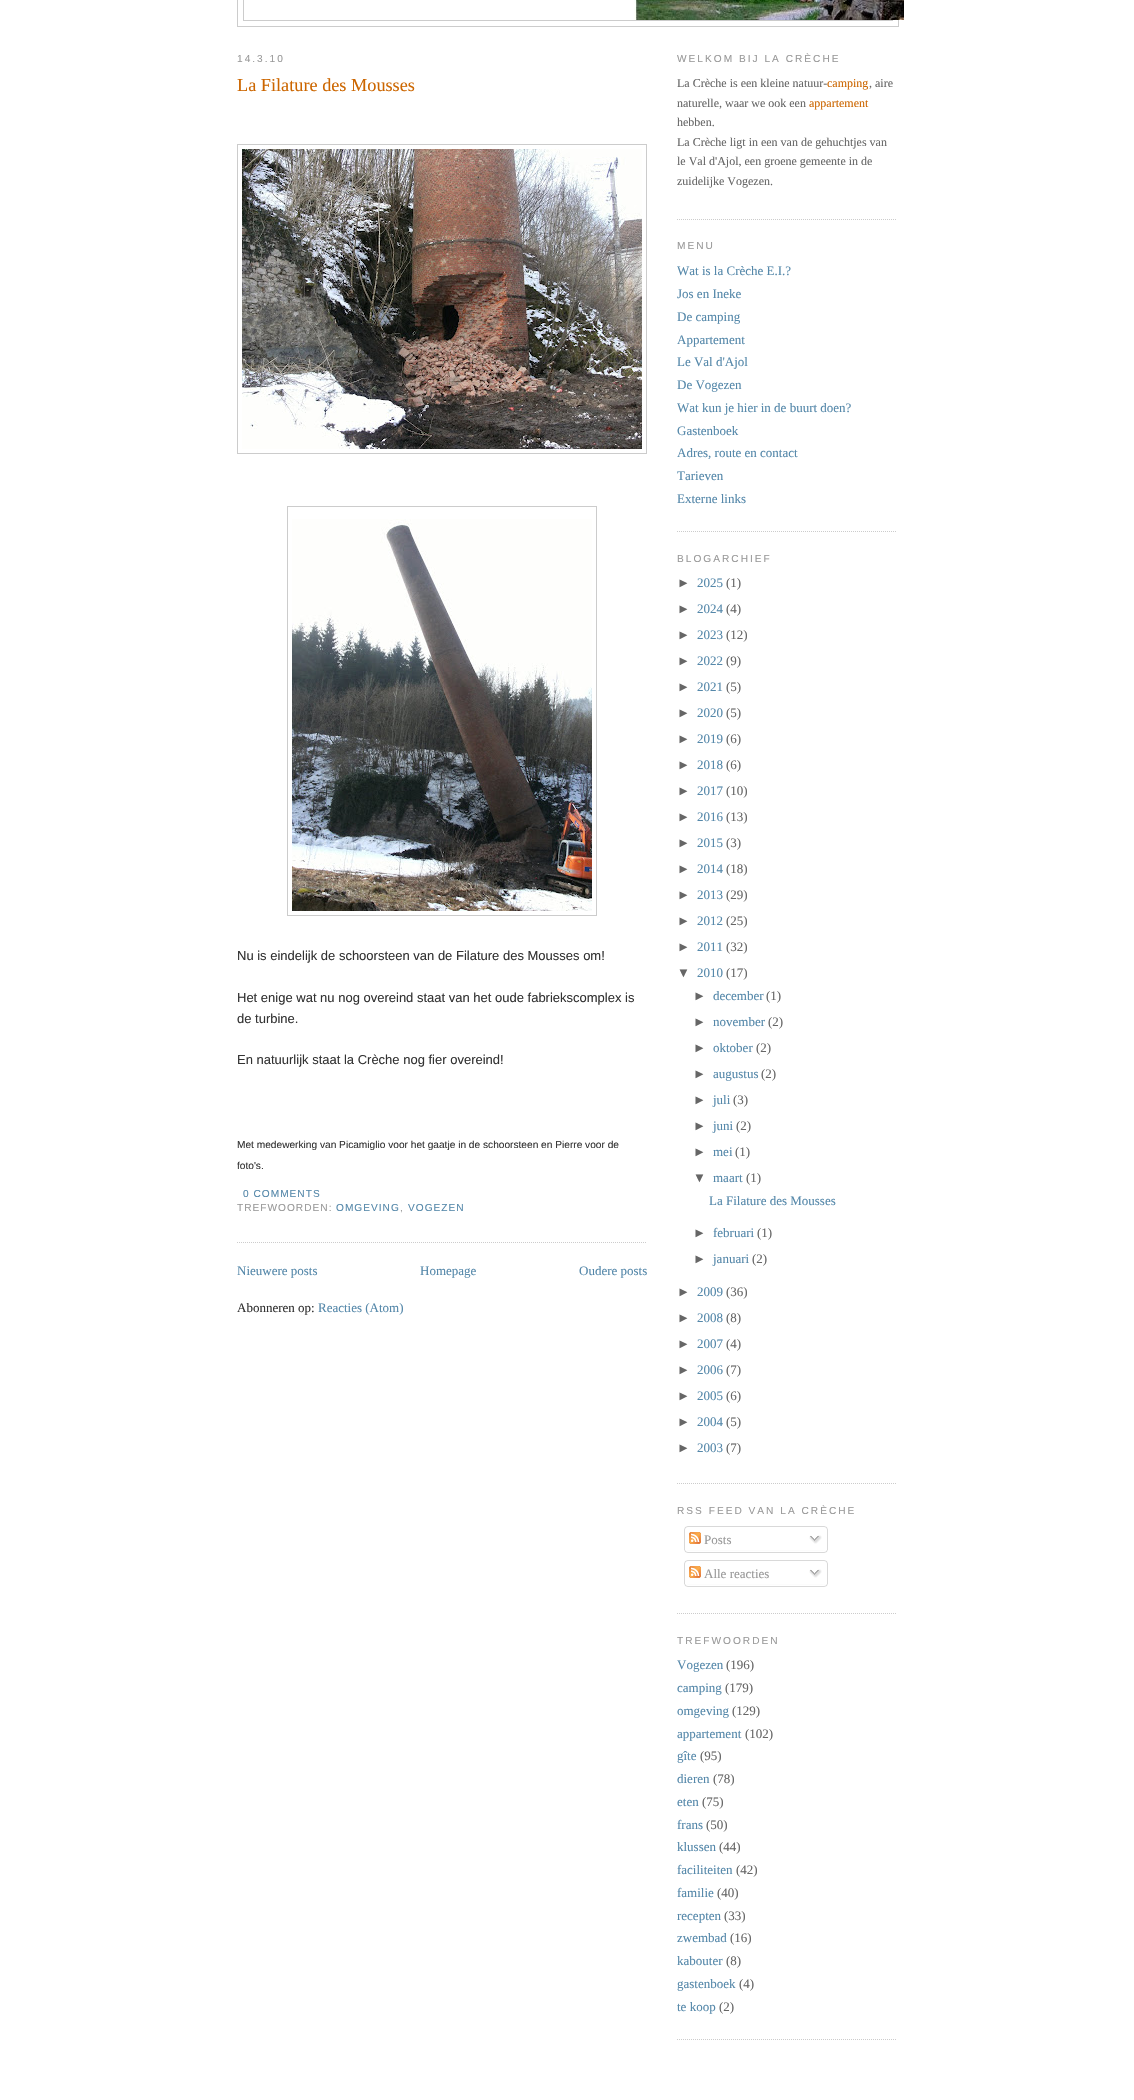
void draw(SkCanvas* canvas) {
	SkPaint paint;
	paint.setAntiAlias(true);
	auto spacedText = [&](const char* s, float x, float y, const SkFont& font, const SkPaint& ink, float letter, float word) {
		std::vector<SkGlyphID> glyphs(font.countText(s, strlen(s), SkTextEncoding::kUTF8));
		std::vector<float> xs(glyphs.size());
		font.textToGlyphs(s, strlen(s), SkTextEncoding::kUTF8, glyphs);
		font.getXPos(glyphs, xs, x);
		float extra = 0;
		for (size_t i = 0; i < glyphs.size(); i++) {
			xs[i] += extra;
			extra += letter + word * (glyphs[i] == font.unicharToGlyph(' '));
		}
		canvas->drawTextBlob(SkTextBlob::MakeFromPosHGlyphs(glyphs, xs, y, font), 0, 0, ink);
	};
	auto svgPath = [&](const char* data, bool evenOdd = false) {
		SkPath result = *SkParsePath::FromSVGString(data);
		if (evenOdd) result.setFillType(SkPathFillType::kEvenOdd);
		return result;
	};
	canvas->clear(0xffffffff);
	paint.setStroke(true);
	paint.setStrokeWidth(1);
	paint.setColor(0xffcccccc);
	canvas->drawRect(SkRect::MakeXYWH(237.5, -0.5, 661, 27), paint);
	canvas->drawRect(SkRect::MakeXYWH(243.5, -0.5, 649, 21), paint);
	canvas->drawImageRect(SkImages::DeferredFromEncodedData(SkData::MakeFromFileName("img1.png")), SkRect::MakeXYWH(634, 0, 270, 20), SkSamplingOptions());
	SkFont f1(fontMgr->matchFamilyStyle("Liberation Sans", SkFontStyle::Normal()), 10.15);
	f1.setSubpixel(true);
	paint.setStroke(false);
	paint.setColor(0xff999999);
	spacedText("14.3.10", 237, 62, f1, paint, 2, 0);
	paint.setStroke(true);
	paint.setColor(0xffcccccc);
	paint.setPathEffect(SkDashPathEffect::Make({{1, 1}}, 0));
	canvas->drawPath(svgPath("M237 1242.5H647"), paint);
	paint.setPathEffect(nullptr);
	SkFont f2(fontMgr->matchFamilyStyle("Liberation Serif", SkFontStyle::Normal()), 18.25);
	f2.setSubpixel(true);
	paint.setStroke(false);
	paint.setColor(0xffcc6600);
	canvas->drawString("La Filature des Mousses", 237, 91, f2, paint);
	paint.setStroke(true);
	paint.setColor(0xffcccccc);
	canvas->drawRect(SkRect::MakeXYWH(237.5, 144.5, 409, 309), paint);
	canvas->drawImageRect(SkImages::DeferredFromEncodedData(SkData::MakeFromFileName("img2.png")), SkRect::MakeXYWH(242, 149, 400, 300), SkSamplingOptions());
	canvas->drawRect(SkRect::MakeXYWH(287.5, 506.5, 309, 409), paint);
	canvas->drawImageRect(SkImages::DeferredFromEncodedData(SkData::MakeFromFileName("img3.png")), SkRect::MakeXYWH(292, 519, 300, 392), SkSamplingOptions());
	SkFont f3(fontMgr->matchFamilyStyle("Liberation Sans", SkFontStyle::Normal()), 13);
	f3.setSubpixel(true);
	paint.setStroke(false);
	paint.setColor(0xff333333);
	canvas->drawString("Nu is eindelijk de schoorsteen van de Filature des Mousses om!", 237, 960, f3, paint);
	canvas->drawString("Het enige wat nu nog overeind staat van het oude fabriekscomplex is", 237, 1002, f3, paint);
	canvas->drawString("de turbine.", 237, 1023, f3, paint);
	canvas->drawString("En natuurlijk staat la Crèche nog fier overeind!", 237, 1064, f3, paint);
	canvas->drawString("Met medewerking van Picamiglio voor het gaatje in de schoorsteen en Pierre voor de", 237, 1148, f1, paint);
	canvas->drawString("foto's.", 237, 1169, f1, paint);
	paint.setColor(0xff5588aa);
	spacedText("0 COMMENTS", 243, 1197, f1, paint, 1, 0);
	paint.setColor(0xff999999);
	spacedText("TREFWOORDEN:", 237, 1211, f1, paint, 1, 0);
	paint.setColor(0xff5588aa);
	spacedText("OMGEVING", 336, 1211, f1, paint, 1, 0);
	paint.setColor(0xff999999);
	spacedText(",", 400, 1211, f1, paint, 1, 0);
	paint.setColor(0xff5588aa);
	spacedText("VOGEZEN", 408, 1211, f1, paint, 1, 0);
	SkFont f4(fontMgr->matchFamilyStyle("Liberation Serif", SkFontStyle::Normal()), 13);
	f4.setSubpixel(true);
	canvas->drawString("Nieuwere posts", 237, 1275, f4, paint);
	canvas->drawString("Homepage", 420, 1275, f4, paint);
	canvas->drawString("Oudere posts", 579, 1275, f4, paint);
	paint.setColor(0xff333333);
	canvas->drawString("Abonneren op:", 237, 1312, f4, paint);
	paint.setColor(0xff5588aa);
	canvas->drawString("Reacties (Atom)", 318, 1312, f4, paint);
	paint.setStroke(true);
	paint.setColor(0xffcccccc);
	paint.setPathEffect(SkDashPathEffect::Make({{1, 1}}, 0));
	canvas->drawPath(svgPath("M677 219.5H897"), paint);
	paint.setPathEffect(nullptr);
	paint.setStroke(false);
	paint.setColor(0xff999999);
	spacedText("WELKOM BIJ LA CRÈCHE", 677, 62, f1, paint, 2, 0);
	SkFont f5(fontMgr->matchFamilyStyle("Liberation Serif", SkFontStyle::Normal()), 12);
	f5.setSubpixel(true);
	paint.setColor(0xff666666);
	canvas->drawString("La Crèche is een kleine natuur-", 677, 87, f5, paint);
	paint.setColor(0xffcc6600);
	canvas->drawString("camping", 827, 87, f5, paint);
	paint.setColor(0xff666666);
	canvas->drawString(", aire", 869, 87, f5, paint);
	canvas->drawString("naturelle, waar we ook een", 677, 107, f5, paint);
	paint.setColor(0xffcc6600);
	canvas->drawString("appartement", 809, 107, f5, paint);
	paint.setColor(0xff666666);
	canvas->drawString("hebben.", 677, 126, f5, paint);
	canvas->drawString("La Crèche ligt in een van de gehuchtjes van", 677, 146, f5, paint);
	canvas->drawString("le Val d'Ajol, een groene gemeente in de", 677, 165, f5, paint);
	canvas->drawString("zuidelijke Vogezen.", 677, 185, f5, paint);
	paint.setStroke(true);
	paint.setColor(0xffcccccc);
	paint.setPathEffect(SkDashPathEffect::Make({{1, 1}}, 0));
	canvas->drawPath(svgPath("M677 531.5H897"), paint);
	paint.setPathEffect(nullptr);
	paint.setStroke(false);
	paint.setColor(0xff999999);
	spacedText("MENU", 677, 249, f1, paint, 2, 0);
	paint.setColor(0xff5588aa);
	canvas->drawString("Wat is la Crèche E.I.?", 677, 275, f4, paint);
	canvas->drawString("Jos en Ineke", 677, 298, f4, paint);
	canvas->drawString("De camping", 677, 321, f4, paint);
	canvas->drawString("Appartement", 677, 344, f4, paint);
	canvas->drawString("Le Val d'Ajol", 677, 366, f4, paint);
	canvas->drawString("De Vogezen", 677, 389, f4, paint);
	canvas->drawString("Wat kun je hier in de buurt doen?", 677, 412, f4, paint);
	canvas->drawString("Gastenboek", 677, 435, f4, paint);
	canvas->drawString("Adres, route en contact", 677, 457, f4, paint);
	canvas->drawString("Tarieven", 677, 480, f4, paint);
	canvas->drawString("Externe links", 677, 503, f4, paint);
	paint.setStroke(true);
	paint.setColor(0xffcccccc);
	paint.setPathEffect(SkDashPathEffect::Make({{1, 1}}, 0));
	canvas->drawPath(svgPath("M677 1483.5H897"), paint);
	paint.setPathEffect(nullptr);
	paint.setStroke(false);
	paint.setColor(0xff999999);
	spacedText("BLOGARCHIEF", 677, 562, f1, paint, 2, 0);
	paint.setColor(0xff666666);
	canvas->drawString("►", 677, 587, f3, paint);
	paint.setColor(0xff5588aa);
	canvas->drawString("2025", 697, 587, f4, paint);
	paint.setColor(0xff666666);
	canvas->drawString("(1)", 726, 587, f4, paint);
	canvas->drawString("►", 677, 613, f3, paint);
	paint.setColor(0xff5588aa);
	canvas->drawString("2024", 697, 613, f4, paint);
	paint.setColor(0xff666666);
	canvas->drawString("(4)", 726, 613, f4, paint);
	canvas->drawString("►", 677, 639, f3, paint);
	paint.setColor(0xff5588aa);
	canvas->drawString("2023", 697, 639, f4, paint);
	paint.setColor(0xff666666);
	canvas->drawString("(12)", 726, 639, f4, paint);
	canvas->drawString("►", 677, 665, f3, paint);
	paint.setColor(0xff5588aa);
	canvas->drawString("2022", 697, 665, f4, paint);
	paint.setColor(0xff666666);
	canvas->drawString("(9)", 726, 665, f4, paint);
	canvas->drawString("►", 677, 691, f3, paint);
	paint.setColor(0xff5588aa);
	canvas->drawString("2021", 697, 691, f4, paint);
	paint.setColor(0xff666666);
	canvas->drawString("(5)", 726, 691, f4, paint);
	canvas->drawString("►", 677, 717, f3, paint);
	paint.setColor(0xff5588aa);
	canvas->drawString("2020", 697, 717, f4, paint);
	paint.setColor(0xff666666);
	canvas->drawString("(5)", 726, 717, f4, paint);
	canvas->drawString("►", 677, 743, f3, paint);
	paint.setColor(0xff5588aa);
	canvas->drawString("2019", 697, 743, f4, paint);
	paint.setColor(0xff666666);
	canvas->drawString("(6)", 726, 743, f4, paint);
	canvas->drawString("►", 677, 769, f3, paint);
	paint.setColor(0xff5588aa);
	canvas->drawString("2018", 697, 769, f4, paint);
	paint.setColor(0xff666666);
	canvas->drawString("(6)", 726, 769, f4, paint);
	canvas->drawString("►", 677, 795, f3, paint);
	paint.setColor(0xff5588aa);
	canvas->drawString("2017", 697, 795, f4, paint);
	paint.setColor(0xff666666);
	canvas->drawString("(10)", 726, 795, f4, paint);
	canvas->drawString("►", 677, 821, f3, paint);
	paint.setColor(0xff5588aa);
	canvas->drawString("2016", 697, 821, f4, paint);
	paint.setColor(0xff666666);
	canvas->drawString("(13)", 726, 821, f4, paint);
	canvas->drawString("►", 677, 847, f3, paint);
	paint.setColor(0xff5588aa);
	canvas->drawString("2015", 697, 847, f4, paint);
	paint.setColor(0xff666666);
	canvas->drawString("(3)", 726, 847, f4, paint);
	canvas->drawString("►", 677, 873, f3, paint);
	paint.setColor(0xff5588aa);
	canvas->drawString("2014", 697, 873, f4, paint);
	paint.setColor(0xff666666);
	canvas->drawString("(18)", 726, 873, f4, paint);
	canvas->drawString("►", 677, 899, f3, paint);
	paint.setColor(0xff5588aa);
	canvas->drawString("2013", 697, 899, f4, paint);
	paint.setColor(0xff666666);
	canvas->drawString("(29)", 726, 899, f4, paint);
	canvas->drawString("►", 677, 925, f3, paint);
	paint.setColor(0xff5588aa);
	canvas->drawString("2012", 697, 925, f4, paint);
	paint.setColor(0xff666666);
	canvas->drawString("(25)", 726, 925, f4, paint);
	canvas->drawString("►", 677, 951, f3, paint);
	paint.setColor(0xff5588aa);
	canvas->drawString("2011", 697, 951, f4, paint);
	paint.setColor(0xff666666);
	canvas->drawString("(32)", 726, 951, f4, paint);
	canvas->drawString("▼", 677, 977, f3, paint);
	paint.setColor(0xff5588aa);
	canvas->drawString("2010", 697, 977, f4, paint);
	paint.setColor(0xff666666);
	canvas->drawString("(17)", 726, 977, f4, paint);
	canvas->drawString("►", 693, 1000, f3, paint);
	paint.setColor(0xff5588aa);
	canvas->drawString("december", 713, 1000, f4, paint);
	paint.setColor(0xff666666);
	canvas->drawString("(1)", 766, 1000, f4, paint);
	canvas->drawString("►", 693, 1026, f3, paint);
	paint.setColor(0xff5588aa);
	canvas->drawString("november", 713, 1026, f4, paint);
	paint.setColor(0xff666666);
	canvas->drawString("(2)", 768, 1026, f4, paint);
	canvas->drawString("►", 693, 1052, f3, paint);
	paint.setColor(0xff5588aa);
	canvas->drawString("oktober", 713, 1052, f4, paint);
	paint.setColor(0xff666666);
	canvas->drawString("(2)", 756, 1052, f4, paint);
	canvas->drawString("►", 693, 1078, f3, paint);
	paint.setColor(0xff5588aa);
	canvas->drawString("augustus", 713, 1078, f4, paint);
	paint.setColor(0xff666666);
	canvas->drawString("(2)", 761, 1078, f4, paint);
	canvas->drawString("►", 693, 1104, f3, paint);
	paint.setColor(0xff5588aa);
	canvas->drawString("juli", 713, 1104, f4, paint);
	paint.setColor(0xff666666);
	canvas->drawString("(3)", 733, 1104, f4, paint);
	canvas->drawString("►", 693, 1130, f3, paint);
	paint.setColor(0xff5588aa);
	canvas->drawString("juni", 713, 1130, f4, paint);
	paint.setColor(0xff666666);
	canvas->drawString("(2)", 736, 1130, f4, paint);
	canvas->drawString("►", 693, 1156, f3, paint);
	paint.setColor(0xff5588aa);
	canvas->drawString("mei", 713, 1156, f4, paint);
	paint.setColor(0xff666666);
	canvas->drawString("(1)", 735, 1156, f4, paint);
	canvas->drawString("▼", 693, 1182, f3, paint);
	paint.setColor(0xff5588aa);
	canvas->drawString("maart", 713, 1182, f4, paint);
	paint.setColor(0xff666666);
	canvas->drawString("(1)", 746, 1182, f4, paint);
	paint.setColor(0xff5588aa);
	canvas->drawString("La Filature des Mousses", 709, 1205, f4, paint);
	paint.setColor(0xff666666);
	canvas->drawString("►", 693, 1237, f3, paint);
	paint.setColor(0xff5588aa);
	canvas->drawString("februari", 713, 1237, f4, paint);
	paint.setColor(0xff666666);
	canvas->drawString("(1)", 757, 1237, f4, paint);
	canvas->drawString("►", 693, 1263, f3, paint);
	paint.setColor(0xff5588aa);
	canvas->drawString("januari", 713, 1263, f4, paint);
	paint.setColor(0xff666666);
	canvas->drawString("(2)", 752, 1263, f4, paint);
	canvas->drawString("►", 677, 1296, f3, paint);
	paint.setColor(0xff5588aa);
	canvas->drawString("2009", 697, 1296, f4, paint);
	paint.setColor(0xff666666);
	canvas->drawString("(36)", 726, 1296, f4, paint);
	canvas->drawString("►", 677, 1322, f3, paint);
	paint.setColor(0xff5588aa);
	canvas->drawString("2008", 697, 1322, f4, paint);
	paint.setColor(0xff666666);
	canvas->drawString("(8)", 726, 1322, f4, paint);
	canvas->drawString("►", 677, 1348, f3, paint);
	paint.setColor(0xff5588aa);
	canvas->drawString("2007", 697, 1348, f4, paint);
	paint.setColor(0xff666666);
	canvas->drawString("(4)", 726, 1348, f4, paint);
	canvas->drawString("►", 677, 1374, f3, paint);
	paint.setColor(0xff5588aa);
	canvas->drawString("2006", 697, 1374, f4, paint);
	paint.setColor(0xff666666);
	canvas->drawString("(7)", 726, 1374, f4, paint);
	canvas->drawString("►", 677, 1400, f3, paint);
	paint.setColor(0xff5588aa);
	canvas->drawString("2005", 697, 1400, f4, paint);
	paint.setColor(0xff666666);
	canvas->drawString("(6)", 726, 1400, f4, paint);
	canvas->drawString("►", 677, 1426, f3, paint);
	paint.setColor(0xff5588aa);
	canvas->drawString("2004", 697, 1426, f4, paint);
	paint.setColor(0xff666666);
	canvas->drawString("(5)", 726, 1426, f4, paint);
	canvas->drawString("►", 677, 1452, f3, paint);
	paint.setColor(0xff5588aa);
	canvas->drawString("2003", 697, 1452, f4, paint);
	paint.setColor(0xff666666);
	canvas->drawString("(7)", 726, 1452, f4, paint);
	paint.setStroke(true);
	paint.setColor(0xffcccccc);
	paint.setPathEffect(SkDashPathEffect::Make({{1, 1}}, 0));
	canvas->drawPath(svgPath("M677 1613.5H897"), paint);
	paint.setPathEffect(nullptr);
	paint.setStroke(false);
	paint.setColor(0xff999999);
	spacedText("RSS FEED VAN LA CRÈCHE", 677, 1514, f1, paint, 2, 0);
	canvas->drawImageRect(SkImages::DeferredFromEncodedData(SkData::MakeFromFileName("img4.png")), SkRect::MakeXYWH(684, 1526, 144, 24), SkSamplingOptions());
	canvas->drawImageRect(SkImages::DeferredFromEncodedData(SkData::MakeFromFileName("img5.png")), SkRect::MakeXYWH(689, 1532, 12, 12), SkSamplingOptions());
	canvas->drawString("Posts", 704, 1544, f4, paint);
	canvas->drawImageRect(SkImages::DeferredFromEncodedData(SkData::MakeFromFileName("img6.png")), SkRect::MakeXYWH(809, 1535, 13, 9), SkSamplingOptions());
	canvas->drawImageRect(SkImages::DeferredFromEncodedData(SkData::MakeFromFileName("img7.png")), SkRect::MakeXYWH(684, 1550, 144, 3), SkSamplingOptions());
	canvas->drawImageRect(SkImages::DeferredFromEncodedData(SkData::MakeFromFileName("img4.png")), SkRect::MakeXYWH(684, 1560, 144, 24), SkSamplingOptions());
	canvas->drawImageRect(SkImages::DeferredFromEncodedData(SkData::MakeFromFileName("img5.png")), SkRect::MakeXYWH(689, 1566, 12, 12), SkSamplingOptions());
	canvas->drawString("Alle reacties", 704, 1578, f4, paint);
	canvas->drawImageRect(SkImages::DeferredFromEncodedData(SkData::MakeFromFileName("img6.png")), SkRect::MakeXYWH(809, 1569, 13, 9), SkSamplingOptions());
	canvas->drawImageRect(SkImages::DeferredFromEncodedData(SkData::MakeFromFileName("img7.png")), SkRect::MakeXYWH(684, 1584, 144, 3), SkSamplingOptions());
	paint.setStroke(true);
	paint.setColor(0xffcccccc);
	paint.setPathEffect(SkDashPathEffect::Make({{1, 1}}, 0));
	canvas->drawPath(svgPath("M677 2039.5H897"), paint);
	paint.setPathEffect(nullptr);
	paint.setStroke(false);
	paint.setColor(0xff999999);
	spacedText("TREFWOORDEN", 677, 1644, f1, paint, 2, 0);
	paint.setColor(0xff5588aa);
	canvas->drawString("Vogezen", 677, 1669, f4, paint);
	paint.setColor(0xff666666);
	canvas->drawString("(196)", 726, 1669, f4, paint);
	paint.setColor(0xff5588aa);
	canvas->drawString("camping", 677, 1692, f4, paint);
	paint.setColor(0xff666666);
	canvas->drawString("(179)", 725, 1692, f4, paint);
	paint.setColor(0xff5588aa);
	canvas->drawString("omgeving", 677, 1715, f4, paint);
	paint.setColor(0xff666666);
	canvas->drawString("(129)", 732, 1715, f4, paint);
	paint.setColor(0xff5588aa);
	canvas->drawString("appartement", 677, 1738, f4, paint);
	paint.setColor(0xff666666);
	canvas->drawString("(102)", 745, 1738, f4, paint);
	paint.setColor(0xff5588aa);
	canvas->drawString("gîte", 677, 1760, f4, paint);
	paint.setColor(0xff666666);
	canvas->drawString("(95)", 700, 1760, f4, paint);
	paint.setColor(0xff5588aa);
	canvas->drawString("dieren", 677, 1783, f4, paint);
	paint.setColor(0xff666666);
	canvas->drawString("(78)", 713, 1783, f4, paint);
	paint.setColor(0xff5588aa);
	canvas->drawString("eten", 677, 1806, f4, paint);
	paint.setColor(0xff666666);
	canvas->drawString("(75)", 702, 1806, f4, paint);
	paint.setColor(0xff5588aa);
	canvas->drawString("frans", 677, 1829, f4, paint);
	paint.setColor(0xff666666);
	canvas->drawString("(50)", 706, 1829, f4, paint);
	paint.setColor(0xff5588aa);
	canvas->drawString("klussen", 677, 1851, f4, paint);
	paint.setColor(0xff666666);
	canvas->drawString("(44)", 719, 1851, f4, paint);
	paint.setColor(0xff5588aa);
	canvas->drawString("faciliteiten", 677, 1874, f4, paint);
	paint.setColor(0xff666666);
	canvas->drawString("(42)", 736, 1874, f4, paint);
	paint.setColor(0xff5588aa);
	canvas->drawString("familie", 677, 1897, f4, paint);
	paint.setColor(0xff666666);
	canvas->drawString("(40)", 717, 1897, f4, paint);
	paint.setColor(0xff5588aa);
	canvas->drawString("recepten", 677, 1920, f4, paint);
	paint.setColor(0xff666666);
	canvas->drawString("(33)", 724, 1920, f4, paint);
	paint.setColor(0xff5588aa);
	canvas->drawString("zwembad", 677, 1942, f4, paint);
	paint.setColor(0xff666666);
	canvas->drawString("(16)", 730, 1942, f4, paint);
	paint.setColor(0xff5588aa);
	canvas->drawString("kabouter", 677, 1965, f4, paint);
	paint.setColor(0xff666666);
	canvas->drawString("(8)", 726, 1965, f4, paint);
	paint.setColor(0xff5588aa);
	canvas->drawString("gastenboek", 677, 1988, f4, paint);
	paint.setColor(0xff666666);
	canvas->drawString("(4)", 739, 1988, f4, paint);
	paint.setColor(0xff5588aa);
	canvas->drawString("te koop", 677, 2011, f4, paint);
	paint.setColor(0xff666666);
	canvas->drawString("(2)", 719, 2011, f4, paint);
}
